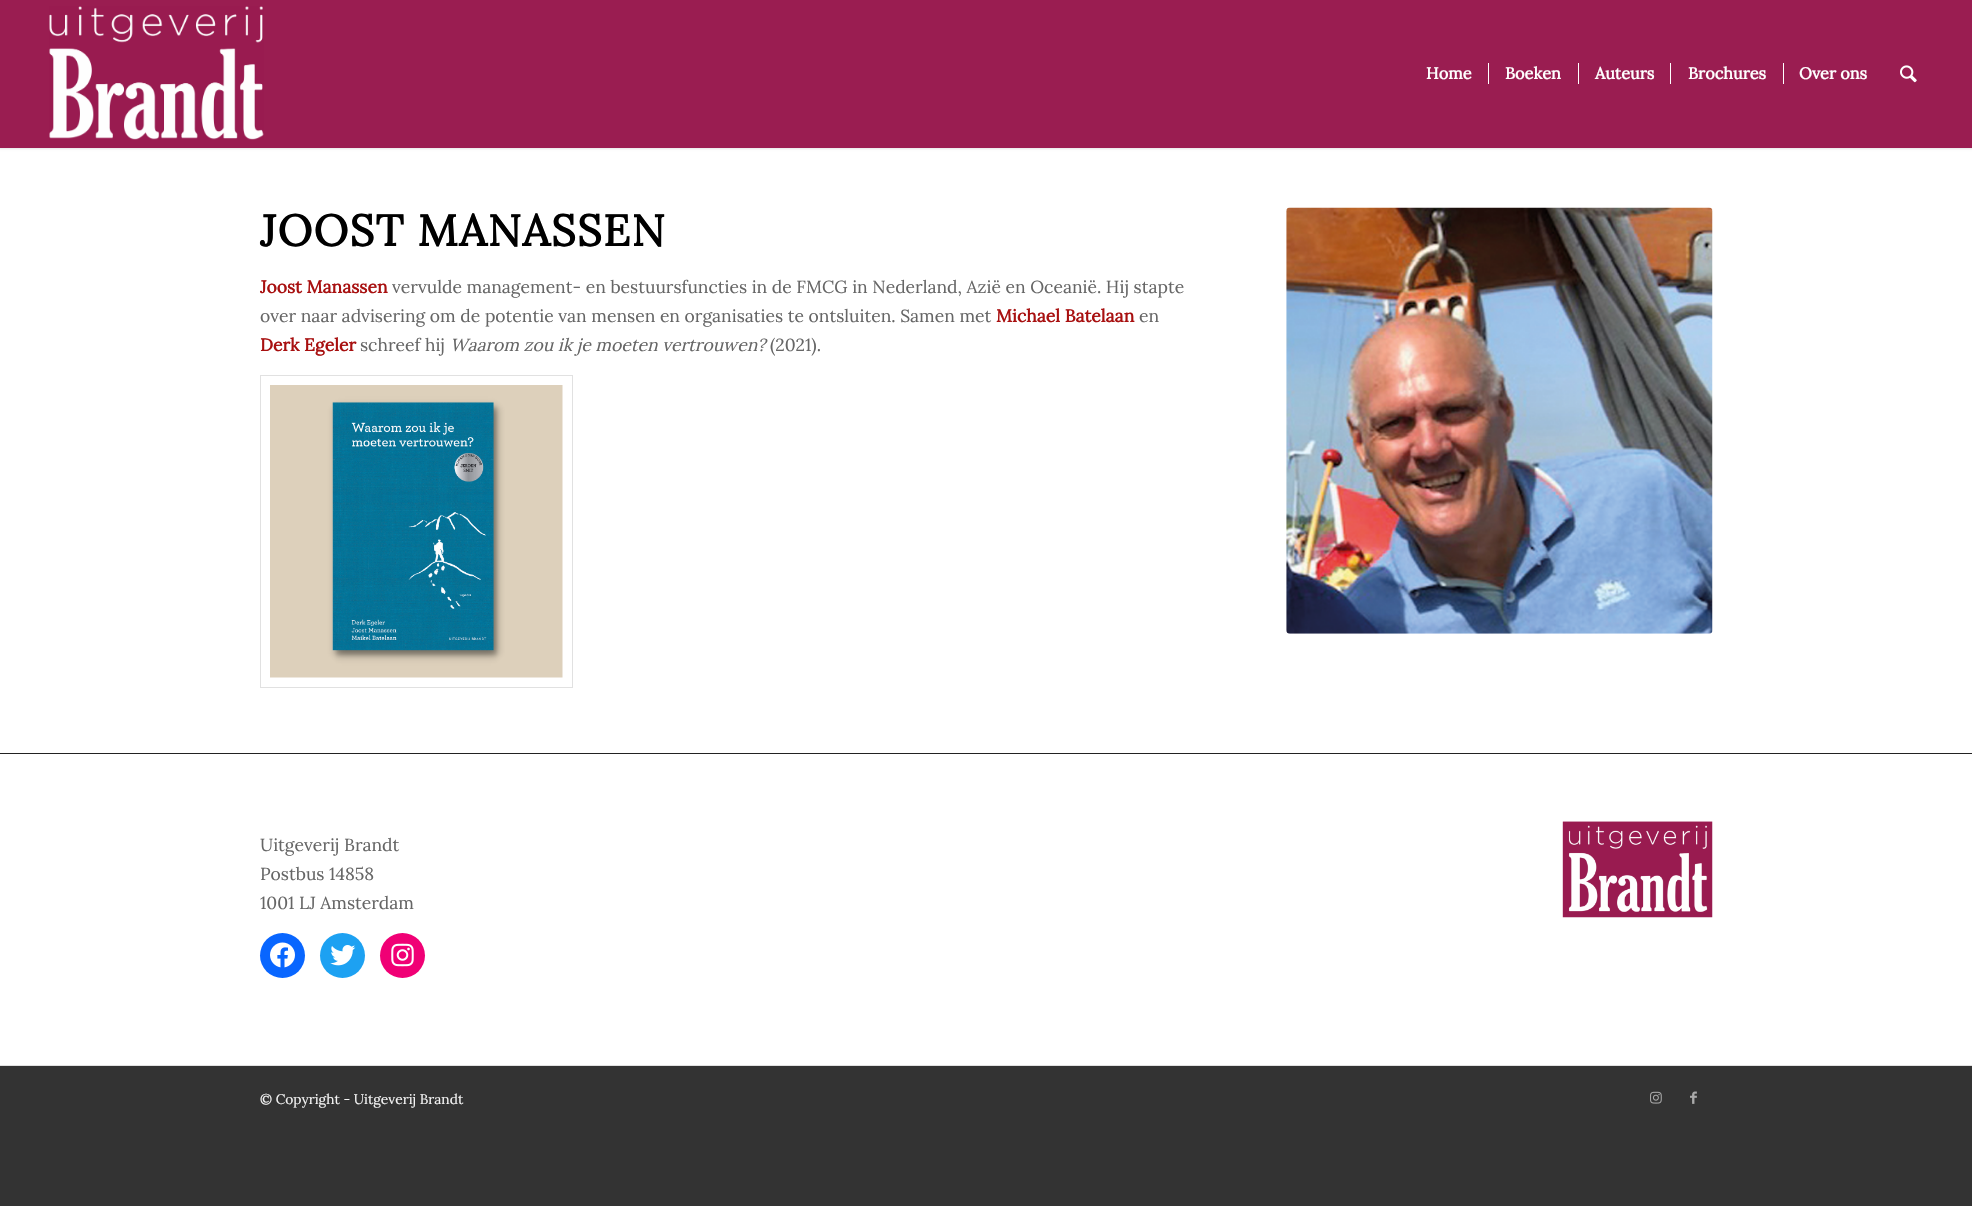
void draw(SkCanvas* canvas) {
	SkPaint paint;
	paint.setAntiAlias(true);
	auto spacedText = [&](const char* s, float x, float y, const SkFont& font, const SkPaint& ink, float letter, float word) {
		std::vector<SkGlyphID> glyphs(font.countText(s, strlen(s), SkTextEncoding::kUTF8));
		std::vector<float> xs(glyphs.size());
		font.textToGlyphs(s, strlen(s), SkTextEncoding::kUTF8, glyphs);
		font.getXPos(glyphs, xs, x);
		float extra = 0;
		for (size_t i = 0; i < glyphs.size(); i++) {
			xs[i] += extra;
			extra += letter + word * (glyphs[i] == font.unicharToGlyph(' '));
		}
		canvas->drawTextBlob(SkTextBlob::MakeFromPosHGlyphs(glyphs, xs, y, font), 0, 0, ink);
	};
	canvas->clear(0xff333333);
	paint.setColor(0xffffffff);
	canvas->drawRect(SkRect::MakeXYWH(0, 148, 1972, 605), paint);
	paint.setColor(0x1a000000);
	paint.setMaskFilter(SkMaskFilter::MakeBlur(kNormal_SkBlurStyle, 1));
	canvas->drawRect(SkRect::MakeXYWH(-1, -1, 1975, 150), paint);
	paint.setMaskFilter(nullptr);
	paint.setColor(0xff9a1d51);
	canvas->drawRect(SkRect::MakeXYWH(0, 0, 1972, 148), paint);
	canvas->drawImageRect(SkImages::DeferredFromEncodedData(SkData::MakeFromFileName("img1.png")), SkRect::MakeXYWH(49, 6, 215, 134), SkSamplingOptions());
	SkFont f1(fontMgr->matchFamilyStyle("Lora", SkFontStyle::Bold()), 16.25);
	f1.setSubpixel(true);
	paint.setColor(0xffffffff);
	canvas->drawString("Home", 1426, 79, f1, paint);
	canvas->drawString("Boeken", 1505, 79, f1, paint);
	canvas->drawRect(SkRect::MakeXYWH(1488, 63, 1, 21), paint);
	canvas->drawString("Auteurs", 1595, 79, f1, paint);
	canvas->drawRect(SkRect::MakeXYWH(1578, 63, 1, 21), paint);
	canvas->drawString("Brochures", 1688, 79, f1, paint);
	canvas->drawRect(SkRect::MakeXYWH(1670, 63, 1, 21), paint);
	canvas->drawString("Over ons", 1799, 79, f1, paint);
	canvas->drawRect(SkRect::MakeXYWH(1783, 63, 1, 21), paint);
	canvas->drawImageRect(SkImages::DeferredFromEncodedData(SkData::MakeFromFileName("img2.png")), SkRect::MakeXYWH(1900, 65, 17, 18), SkSamplingOptions());
	SkFont f2(fontMgr->matchFamilyStyle("Lora", SkFontStyle::Bold()), 43.75);
	f2.setSubpixel(true);
	paint.setColor(0xff000000);
	spacedText("JOOST MANASSEN", 260, 246, f2, paint, 1.25, 0);
	SkFont f3(fontMgr->matchFamilyStyle("Lora", SkFontStyle::Bold()), 17.5);
	f3.setSubpixel(true);
	paint.setColor(0xffa81010);
	canvas->drawString("Joost Manassen", 260, 293, f3, paint);
	SkFont f4(fontMgr->matchFamilyStyle("Lora", SkFontStyle::Normal()), 17.5);
	f4.setSubpixel(true);
	paint.setColor(0xff666666);
	canvas->drawString("vervulde management- en bestuursfuncties in de FMCG in Nederland, Azië en Oceanië. Hij stapte", 392, 293, f4, paint);
	canvas->drawString("over naar advisering om de potentie van mensen en organisaties te ontsluiten. Samen met", 260, 322, f4, paint);
	paint.setColor(0xffa81010);
	canvas->drawString("Michael Batelaan", 996, 322, f3, paint);
	paint.setColor(0xff666666);
	canvas->drawString("en", 1139, 322, f4, paint);
	paint.setColor(0xffa81010);
	canvas->drawString("Derk Egeler", 260, 351, f3, paint);
	paint.setColor(0xff666666);
	canvas->drawString("schreef hij", 360, 351, f4, paint);
	SkFont f5(fontMgr->matchFamilyStyle("Lora", SkFontStyle::Italic()), 17.5);
	f5.setSubpixel(true);
	canvas->drawString("Waarom zou ik je moeten vertrouwen?", 450, 351, f5, paint);
	canvas->drawString("(2021).", 770, 351, f4, paint);
	paint.setStroke(true);
	paint.setStrokeWidth(1);
	paint.setColor(0xffe1e1e1);
	canvas->drawRect(SkRect::MakeXYWH(260.5, 375.5, 312, 312), paint);
	canvas->drawImageRect(SkImages::DeferredFromEncodedData(SkData::MakeFromFileName("img3.png")), SkRect::MakeXYWH(270, 385, 293, 293), SkSamplingOptions());
	canvas->drawImageRect(SkImages::DeferredFromEncodedData(SkData::MakeFromFileName("img4.png")), SkRect::MakeXYWH(1286, 207, 427, 427), SkSamplingOptions());
	paint.setStroke(false);
	paint.setColor(0xff222222);
	canvas->drawRect(SkRect::MakeXYWH(0, 753, 1972, 1), paint);
	paint.setColor(0xffffffff);
	canvas->drawRect(SkRect::MakeXYWH(0, 754, 1972, 311), paint);
	paint.setColor(0xff666666);
	canvas->drawString("Uitgeverij Brandt", 260, 851, f4, paint);
	canvas->drawString("Postbus 14858", 260, 880, f4, paint);
	canvas->drawString("1001 LJ Amsterdam", 260, 909, f4, paint);
	canvas->drawImageRect(SkImages::DeferredFromEncodedData(SkData::MakeFromFileName("img5.png")), SkRect::MakeXYWH(1562, 821, 151, 97), SkSamplingOptions());
	paint.setColor(0xff0866ff);
	canvas->drawCircle(282.5, 955.5, 22.5, paint);
	canvas->drawImageRect(SkImages::DeferredFromEncodedData(SkData::MakeFromFileName("img6.png")), SkRect::MakeXYWH(270, 942, 25, 26), SkSamplingOptions());
	paint.setColor(0xff1da1f2);
	canvas->drawCircle(342.5, 955.5, 22.5, paint);
	canvas->drawImageRect(SkImages::DeferredFromEncodedData(SkData::MakeFromFileName("img7.png")), SkRect::MakeXYWH(330, 945, 26, 21), SkSamplingOptions());
	paint.setColor(0xfff00075);
	canvas->drawCircle(402.5, 955.5, 22.5, paint);
	canvas->drawImageRect(SkImages::DeferredFromEncodedData(SkData::MakeFromFileName("img8.png")), SkRect::MakeXYWH(391, 943, 23, 24), SkSamplingOptions());
	paint.setColor(0xffe1e1e1);
	canvas->drawRect(SkRect::MakeXYWH(0, 1065, 1972, 1), paint);
	SkFont f6(fontMgr->matchFamilyStyle("Lora", SkFontStyle::Normal()), 13.75);
	f6.setSubpixel(true);
	paint.setColor(0xfff5f5f5);
	canvas->drawString("© Copyright - Uitgeverij Brandt", 260, 1104, f6, paint);
	canvas->drawImageRect(SkImages::DeferredFromEncodedData(SkData::MakeFromFileName("img9.png")), SkRect::MakeXYWH(1650, 1091, 12, 13), SkSamplingOptions());
	canvas->drawImageRect(SkImages::DeferredFromEncodedData(SkData::MakeFromFileName("img10.png")), SkRect::MakeXYWH(1690, 1091, 7, 13), SkSamplingOptions());
}
